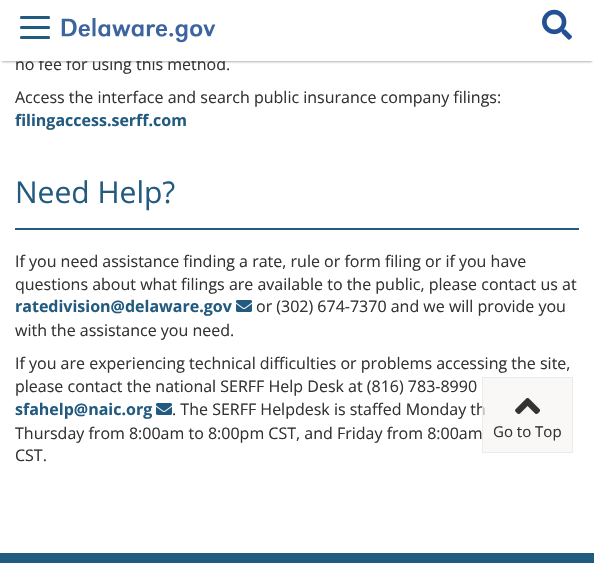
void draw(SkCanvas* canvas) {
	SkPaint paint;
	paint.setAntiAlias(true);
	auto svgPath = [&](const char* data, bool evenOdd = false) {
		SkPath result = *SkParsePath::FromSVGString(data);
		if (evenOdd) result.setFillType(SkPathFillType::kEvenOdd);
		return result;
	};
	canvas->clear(0xffffffff);
	paint.setColor(0x4d000000);
	paint.setMaskFilter(SkMaskFilter::MakeBlur(kNormal_SkBlurStyle, 1));
	canvas->drawRect(SkRect::MakeXYWH(2, 6, 590, 56), paint);
	paint.setMaskFilter(nullptr);
	SkFont f1(fontMgr->matchFamilyStyle("Open Sans", SkFontStyle::Normal()), 16);
	f1.setSubpixel(true);
	paint.setColor(0xff333333);
	canvas->drawString("no fee for using this method.", 15, 70, f1, paint);
	paint.setColor(0xffffffff);
	canvas->drawRect(SkRect::MakeXYWH(0, 4, 594, 57), paint);
	paint.setColor(0xff235b80);
	canvas->drawPath(svgPath("M21.5 16H35V19H21.5C20.5 19 20 18.5 20 17.5C20 16.5 20.5 16 21.5 16Z"), paint);
	canvas->drawPath(svgPath("M35 16H48.5C49.5 16 50 16.5 50 17.5C50 18.5 49.5 19 48.5 19H35Z"), paint);
	canvas->drawPath(svgPath("M21.5 26H35V29H21.5C20.5 29 20 28.5 20 27.5C20 26.5 20.5 26 21.5 26Z"), paint);
	canvas->drawPath(svgPath("M35 26H48.5C49.5 26 50 26.5 50 27.5C50 28.5 49.5 29 48.5 29H35Z"), paint);
	canvas->drawPath(svgPath("M21.5 36H35V39H21.5C20.5 39 20 38.5 20 37.5C20 36.5 20.5 36 21.5 36Z"), paint);
	canvas->drawPath(svgPath("M35 36H48.5C49.5 36 50 36.5 50 37.5C50 38.5 49.5 39 48.5 39H35Z"), paint);
	canvas->drawImageRect(SkImages::DeferredFromEncodedData(SkData::MakeFromFileName("img1.png")), SkRect::MakeXYWH(61, 18, 155, 25), SkSamplingOptions());
	canvas->drawImageRect(SkImages::DeferredFromEncodedData(SkData::MakeFromFileName("img2.png")), SkRect::MakeXYWH(542, 9, 30, 31), SkSamplingOptions());
	paint.setColor(0xff333333);
	canvas->drawString("Access the interface and search public insurance company filings:", 15, 103, f1, paint);
	SkFont f2(fontMgr->matchFamilyStyle("Open Sans", SkFontStyle::Bold()), 16);
	f2.setSubpixel(true);
	paint.setColor(0xff235b80);
	canvas->drawString("filingaccess.serff.com", 15, 126, f2, paint);
	SkFont f3(fontMgr->matchFamilyStyle("Open Sans", SkFontStyle::Normal()), 30);
	f3.setSubpixel(true);
	canvas->drawString("Need Help?", 15, 203, f3, paint);
	canvas->drawRect(SkRect::MakeXYWH(15, 228, 564, 2), paint);
	paint.setColor(0xff333333);
	canvas->drawString("If you need assistance finding a rate, rule or form filing or if you have", 15, 267, f1, paint);
	canvas->drawString("questions about what filings are available to the public, please contact us at", 15, 290, f1, paint);
	paint.setColor(0xff235b80);
	canvas->drawString("ratedivision@delaware.gov", 15, 312, f2, paint);
	canvas->drawImageRect(SkImages::DeferredFromEncodedData(SkData::MakeFromFileName("img3.png")), SkRect::MakeXYWH(236, 300, 16, 12), SkSamplingOptions());
	paint.setColor(0xff333333);
	canvas->drawString("or (302) 674-7370 and we will provide you", 256, 312, f1, paint);
	canvas->drawString("with the assistance you need.", 15, 336, f1, paint);
	canvas->drawString("If you are experiencing technical difficulties or problems accessing the site,", 15, 369, f1, paint);
	canvas->drawString("please contact the national SERFF Help Desk at (816) 783-8990", 15, 392, f1, paint);
	paint.setColor(0xff235b80);
	canvas->drawString("sfahelp@naic.org", 15, 415, f2, paint);
	canvas->drawImageRect(SkImages::DeferredFromEncodedData(SkData::MakeFromFileName("img3.png")), SkRect::MakeXYWH(156, 403, 16, 12), SkSamplingOptions());
	paint.setColor(0xff333333);
	canvas->drawString(". The SERFF Helpdesk is staffed Monday th", 172, 415, f1, paint);
	canvas->drawString("Thursday from 8:00am to 8:00pm CST, and Friday from 8:00am", 15, 439, f1, paint);
	canvas->drawString("CST.", 15, 461, f1, paint);
	paint.setColor(0xb3f6f5f4);
	canvas->drawRect(SkRect::MakeXYWH(482, 377, 91, 76), paint);
	paint.setStroke(true);
	paint.setStrokeWidth(1);
	paint.setColor(0xb3e6e6e6);
	canvas->drawRect(SkRect::MakeXYWH(482.5, 377.5, 90, 75), paint);
	canvas->drawImageRect(SkImages::DeferredFromEncodedData(SkData::MakeFromFileName("img4.png")), SkRect::MakeXYWH(515, 398, 26, 16), SkSamplingOptions());
	SkFont f4(fontMgr->matchFamilyStyle("Open Sans", SkFontStyle::Normal()), 15);
	f4.setSubpixel(true);
	paint.setStroke(false);
	paint.setColor(0xff333333);
	canvas->drawString("Go to Top", 493, 437, f4, paint);
	paint.setColor(0xff235b80);
	canvas->drawRect(SkRect::MakeXYWH(0, 553, 594, 10), paint);
}
